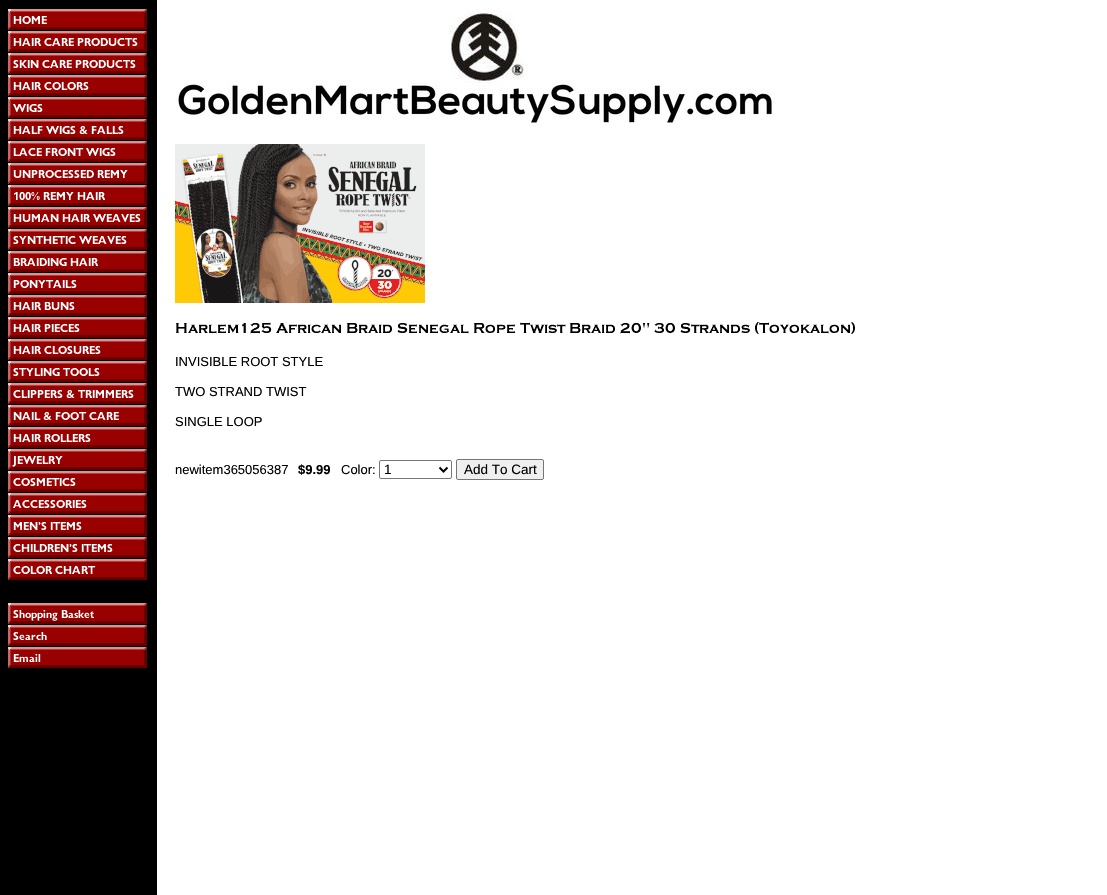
void draw(SkCanvas* canvas) {
	SkPaint paint;
	paint.setAntiAlias(true);
	auto svgPath = [&](const char* data, bool evenOdd = false) {
		SkPath result = *SkParsePath::FromSVGString(data);
		if (evenOdd) result.setFillType(SkPathFillType::kEvenOdd);
		return result;
	};
	canvas->clear(0xffffffff);
	paint.setColor(0xff000000);
	canvas->drawRect(SkRect::MakeXYWH(0, 0, 157, 895), paint);
	canvas->drawImageRect(SkImages::DeferredFromEncodedData(SkData::MakeFromFileName("img1.png")), SkRect::MakeXYWH(8, 9, 139, 659), SkSamplingOptions());
	canvas->drawImageRect(SkImages::DeferredFromEncodedData(SkData::MakeFromFileName("img2.png")), SkRect::MakeXYWH(176, 8, 599, 118), SkSamplingOptions());
	canvas->drawImageRect(SkImages::DeferredFromEncodedData(SkData::MakeFromFileName("img3.png")), SkRect::MakeXYWH(175, 144, 250, 159), SkSamplingOptions());
	canvas->drawImageRect(SkImages::DeferredFromEncodedData(SkData::MakeFromFileName("img4.png")), SkRect::MakeXYWH(176, 322, 679, 12), SkSamplingOptions());
	SkFont f1(fontMgr->matchFamilyStyle("Liberation Sans", SkFontStyle::Normal()), 13);
	f1.setSubpixel(true);
	canvas->drawString("INVISIBLE ROOT STYLE", 175, 366, f1, paint);
	canvas->drawString("TWO STRAND TWIST", 175, 396, f1, paint);
	canvas->drawString("SINGLE LOOP", 175, 426, f1, paint);
	canvas->drawString("newitem365056387", 175, 474, f1, paint);
	SkFont f2(fontMgr->matchFamilyStyle("Liberation Sans", SkFontStyle::Bold()), 13);
	f2.setSubpixel(true);
	canvas->drawString("$9.99", 298, 474, f2, paint);
	canvas->drawString("Color:", 341, 474, f1, paint);
	paint.setStroke(true);
	paint.setStrokeWidth(1);
	paint.setColor(0xff767676);
	canvas->drawRoundRect(SkRect::MakeXYWH(379.5, 460.5, 72, 18), 1.5, 1.5, paint);
	paint.setStrokeWidth(2);
	paint.setColor(0xff000000);
	canvas->drawPath(svgPath("M439.5 467.5L443.5 471.5L447.5 467.5"), paint);
	SkFont f3(fontMgr->matchFamilyStyle("Liberation Sans", SkFontStyle::Normal()), 13.5);
	f3.setSubpixel(true);
	paint.setStroke(false);
	canvas->drawString("1", 384, 474, f3, paint);
	paint.setColor(0xffefefef);
	canvas->drawRoundRect(SkRect::MakeXYWH(456.5, 459.5, 87, 20), 1.5, 1.5, paint);
	paint.setStroke(true);
	paint.setStrokeWidth(1);
	paint.setColor(0xff767676);
	canvas->drawRoundRect(SkRect::MakeXYWH(456.5, 459.5, 87, 20), 1.5, 1.5, paint);
	paint.setStroke(false);
	paint.setColor(0xff000000);
	canvas->drawString("Add To Cart", 464, 474, f3, paint);
}
